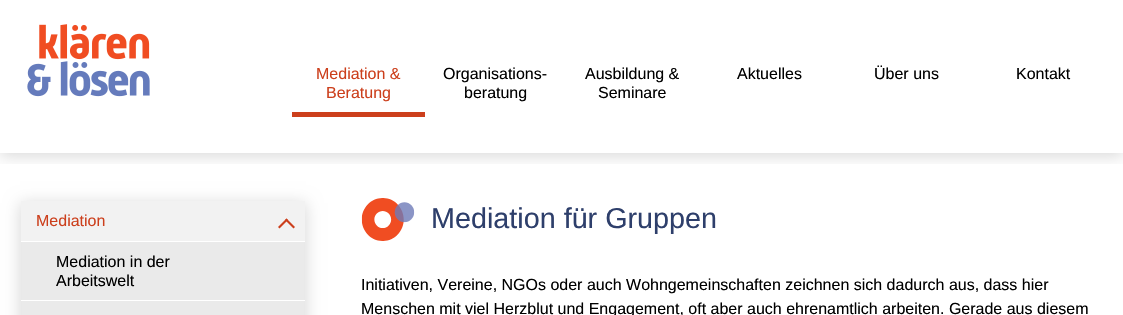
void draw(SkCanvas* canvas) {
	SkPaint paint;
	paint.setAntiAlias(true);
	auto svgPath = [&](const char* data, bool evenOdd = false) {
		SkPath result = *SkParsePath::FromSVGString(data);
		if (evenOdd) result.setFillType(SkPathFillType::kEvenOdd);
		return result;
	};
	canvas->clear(0xffffffff);
	canvas->save();
	canvas->clipRect(SkRect::MakeXYWH(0, 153, 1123, 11));
	paint.setColor(0x26010101);
	paint.setMaskFilter(SkMaskFilter::MakeBlur(kNormal_SkBlurStyle, 7.5));
	canvas->drawRect(SkRect::MakeXYWH(0, 3, 1123, 153), paint);
	paint.setMaskFilter(nullptr);
	canvas->restore();
	canvas->drawImageRect(SkImages::DeferredFromEncodedData(SkData::MakeFromFileName("img1.png")), SkRect::MakeXYWH(27, 24, 123, 73), SkSamplingOptions());
	paint.setColor(0xffcc3f1c);
	canvas->drawRect(SkRect::MakeXYWH(292, 112, 133, 5), paint);
	SkFont f1(fontMgr->matchFamilyStyle("Arimo", SkFontStyle::Normal()), 16);
	f1.setSubpixel(true);
	canvas->drawString("Mediation &", 316, 79, f1, paint);
	canvas->drawString("Beratung", 326, 98, f1, paint);
	paint.setColor(0x26010101);
	paint.setMaskFilter(SkMaskFilter::MakeBlur(kNormal_SkBlurStyle, 7.5));
	canvas->drawRect(SkRect::MakeXYWH(20, 203, 286, 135), paint);
	paint.setMaskFilter(nullptr);
	paint.setColor(0xfff2f2f2);
	canvas->drawRect(SkRect::MakeXYWH(21, 201, 284, 40), paint);
	paint.setColor(0xffcc3f1c);
	canvas->drawString("Mediation", 36, 226, f1, paint);
	canvas->drawPath(svgPath("M288 220L279.5 228.5L278 227L286.5 218.5Z"), paint);
	canvas->drawPath(svgPath("M295 227L293.5 228.5L285 220L286.5 218.5Z"), paint);
	paint.setColor(0xffeaeaea);
	canvas->drawRect(SkRect::MakeXYWH(22, 242, 282, 58), paint);
	paint.setColor(0xffffffff);
	canvas->drawRect(SkRect::MakeXYWH(21, 241, 284, 1), paint);
	paint.setColor(0xff000000);
	canvas->drawString("Mediation in der", 56, 267, f1, paint);
	canvas->drawString("Arbeitswelt", 56, 286, f1, paint);
	paint.setColor(0xffeaeaea);
	canvas->drawRect(SkRect::MakeXYWH(22, 301, 282, 14), paint);
	paint.setColor(0xffffffff);
	canvas->drawRect(SkRect::MakeXYWH(21, 300, 284, 1), paint);
	paint.setColor(0xff000000);
	canvas->drawString("Organisations-", 443, 79, f1, paint);
	canvas->drawString("beratung", 464, 98, f1, paint);
	canvas->drawString("Ausbildung &", 585, 79, f1, paint);
	canvas->drawString("Seminare", 598, 98, f1, paint);
	canvas->drawString("Aktuelles", 737, 79, f1, paint);
	canvas->drawString("Über uns", 874, 79, f1, paint);
	canvas->drawString("Kontakt", 1016, 79, f1, paint);
	canvas->drawImageRect(SkImages::DeferredFromEncodedData(SkData::MakeFromFileName("img2.png")), SkRect::MakeXYWH(361, 198, 54, 43), SkSamplingOptions());
	SkFont f2(fontMgr->matchFamilyStyle("Arimo", SkFontStyle::Normal()), 28.75);
	f2.setSubpixel(true);
	paint.setColor(0xff2e3f6b);
	canvas->drawString("Mediation für Gruppen", 431, 228, f2, paint);
	paint.setColor(0xff000000);
	canvas->drawString("Initiativen, Vereine, NGOs oder auch Wohngemeinschaften zeichnen sich dadurch aus, dass hier", 361, 290, f1, paint);
	canvas->drawString("Menschen mit viel Herzblut und Engagement, oft aber auch ehrenamtlich arbeiten. Gerade aus diesem", 361, 314, f1, paint);
}
